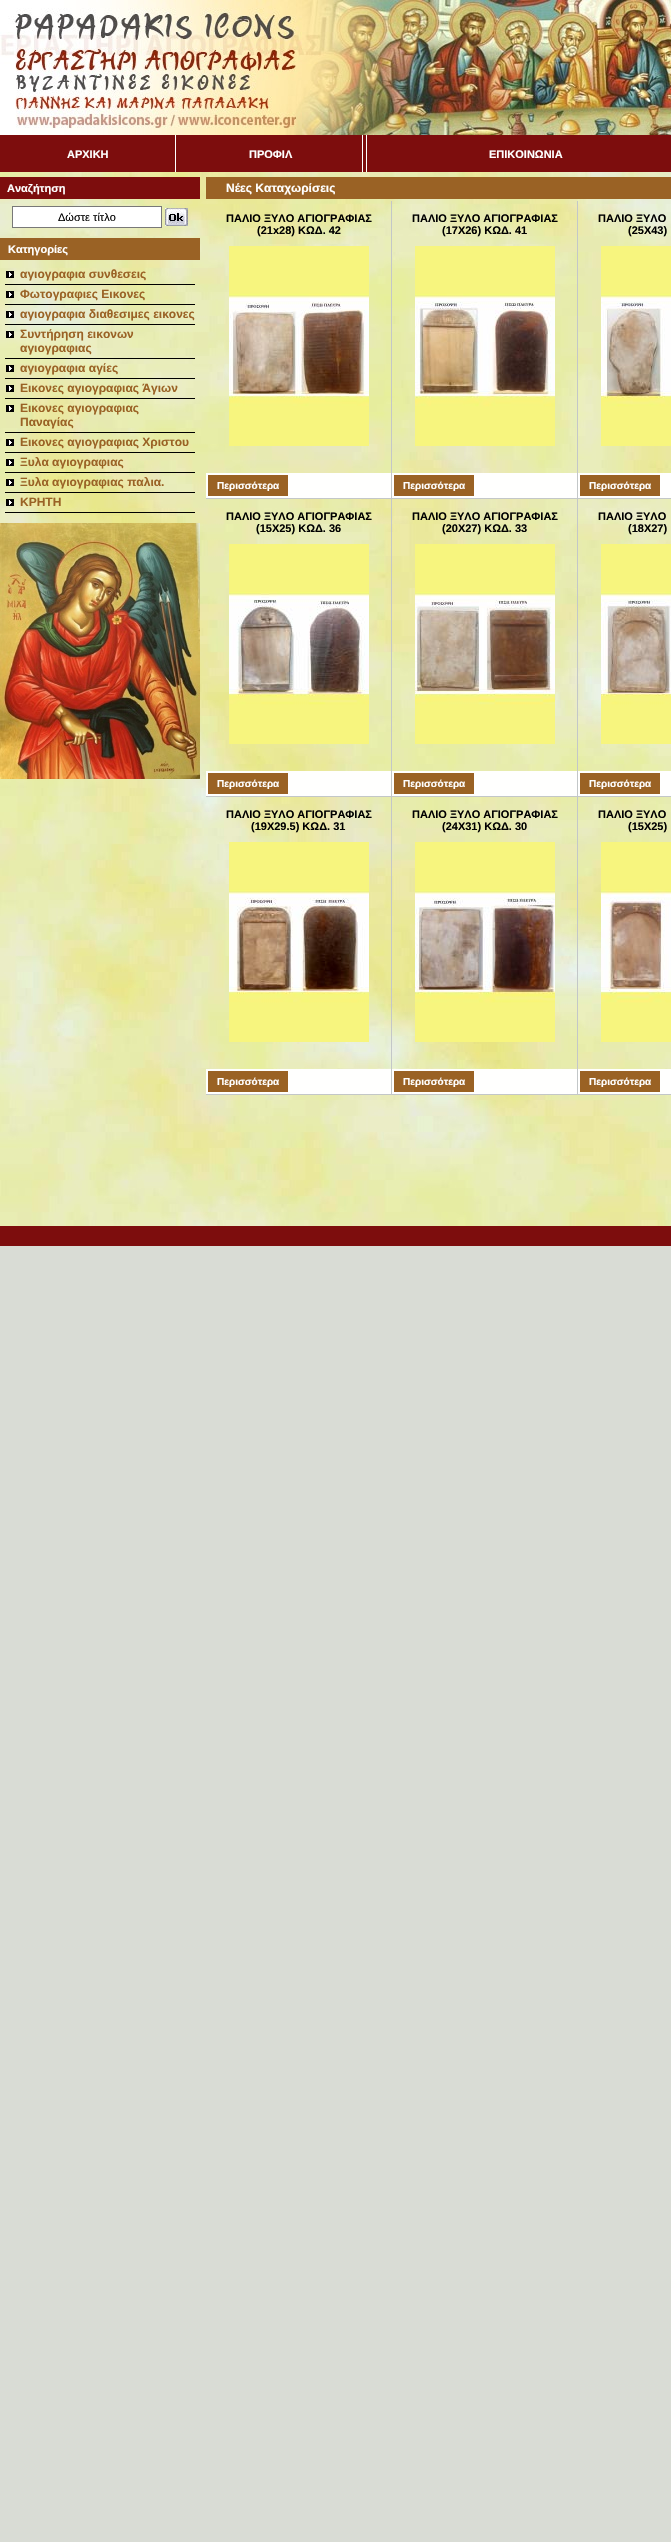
void draw(SkCanvas* canvas) {
	SkPaint paint;
	paint.setAntiAlias(true);
	canvas->clear(0xffd9dcd5);
	canvas->drawImageRect(SkImages::DeferredFromEncodedData(SkData::MakeFromFileName("img1.png")), SkRect::MakeXYWH(0, 0, 302, 135), SkSamplingOptions());
	canvas->drawImageRect(SkImages::DeferredFromEncodedData(SkData::MakeFromFileName("img2.png")), SkRect::MakeXYWH(302, 0, 369, 135), SkSamplingOptions());
	paint.setColor(0xff7d0d0d);
	canvas->drawRect(SkRect::MakeXYWH(0, 135, 671, 37), paint);
	SkFont f1(fontMgr->matchFamilyStyle("Liberation Sans", SkFontStyle::Bold()), 11);
	f1.setSubpixel(true);
	paint.setColor(0xffffffff);
	canvas->drawString("ΑΡΧΙΚΗ", 67, 158, f1, paint);
	canvas->drawRect(SkRect::MakeXYWH(175, 135, 1, 37), paint);
	canvas->drawString("ΠΡΟΦΙΛ", 249, 158, f1, paint);
	canvas->drawRect(SkRect::MakeXYWH(362, 135, 1, 37), paint);
	canvas->drawRect(SkRect::MakeXYWH(366, 135, 1, 37), paint);
	canvas->drawString("ΕΠΙΚΟΙΝΩΝΙΑ", 489, 158, f1, paint);
	canvas->drawImageRect(SkImages::DeferredFromEncodedData(SkData::MakeFromFileName("img3.png")), SkRect::MakeXYWH(0, 172, 671, 1054), SkSamplingOptions());
	paint.setColor(0xff7d0d0d);
	canvas->drawRect(SkRect::MakeXYWH(0, 177, 200, 22), paint);
	paint.setColor(0xffffffff);
	canvas->drawString("Αναζήτηση", 7, 192, f1, paint);
	canvas->drawRect(SkRect::MakeXYWH(12.5, 206.5, 149, 21), paint);
	paint.setStroke(true);
	paint.setStrokeWidth(1);
	paint.setColor(0xff787878);
	canvas->drawRect(SkRect::MakeXYWH(12.5, 206.5, 149, 21), paint);
	SkFont f2(fontMgr->matchFamilyStyle("Liberation Sans", SkFontStyle::Normal()), 11);
	f2.setSubpixel(true);
	paint.setStroke(false);
	paint.setColor(0xff000000);
	canvas->drawString("Δώστε τίτλο", 58, 221, f2, paint);
	canvas->drawImageRect(SkImages::DeferredFromEncodedData(SkData::MakeFromFileName("img4.png")), SkRect::MakeXYWH(165, 208, 23, 18), SkSamplingOptions());
	paint.setColor(0xff9a6225);
	canvas->drawRect(SkRect::MakeXYWH(0, 238, 200, 22), paint);
	paint.setColor(0xffffffff);
	canvas->drawString("Κατηγορίες", 8, 253, f1, paint);
	canvas->drawImageRect(SkImages::DeferredFromEncodedData(SkData::MakeFromFileName("img5.png")), SkRect::MakeXYWH(6, 271, 8, 7), SkSamplingOptions());
	paint.setColor(0xff000000);
	canvas->drawRect(SkRect::MakeXYWH(5, 284, 190, 1), paint);
	SkFont f3(fontMgr->matchFamilyStyle("Liberation Sans", SkFontStyle::Bold()), 12);
	f3.setSubpixel(true);
	paint.setColor(0xff9a6225);
	canvas->drawString("αγιογραφια συνθεσεις", 20, 278, f3, paint);
	canvas->drawImageRect(SkImages::DeferredFromEncodedData(SkData::MakeFromFileName("img5.png")), SkRect::MakeXYWH(6, 291, 8, 7), SkSamplingOptions());
	paint.setColor(0xff000000);
	canvas->drawRect(SkRect::MakeXYWH(5, 304, 190, 1), paint);
	paint.setColor(0xff9a6225);
	canvas->drawString("Φωτογραφιες Εικονες", 20, 298, f3, paint);
	canvas->drawImageRect(SkImages::DeferredFromEncodedData(SkData::MakeFromFileName("img5.png")), SkRect::MakeXYWH(6, 311, 8, 7), SkSamplingOptions());
	paint.setColor(0xff000000);
	canvas->drawRect(SkRect::MakeXYWH(5, 324, 190, 1), paint);
	paint.setColor(0xff9a6225);
	canvas->drawString("αγιογραφια διαθεσιμες εικονες", 20, 318, f3, paint);
	canvas->drawImageRect(SkImages::DeferredFromEncodedData(SkData::MakeFromFileName("img5.png")), SkRect::MakeXYWH(6, 331, 8, 7), SkSamplingOptions());
	paint.setColor(0xff000000);
	canvas->drawRect(SkRect::MakeXYWH(5, 358, 190, 1), paint);
	paint.setColor(0xff9a6225);
	canvas->drawString("Συντήρηση εικονων", 20, 338, f3, paint);
	canvas->drawString("αγιογραφιας", 20, 352, f3, paint);
	canvas->drawImageRect(SkImages::DeferredFromEncodedData(SkData::MakeFromFileName("img5.png")), SkRect::MakeXYWH(6, 365, 8, 7), SkSamplingOptions());
	paint.setColor(0xff000000);
	canvas->drawRect(SkRect::MakeXYWH(5, 378, 190, 1), paint);
	paint.setColor(0xff9a6225);
	canvas->drawString("αγιογραφια αγίες", 20, 372, f3, paint);
	canvas->drawImageRect(SkImages::DeferredFromEncodedData(SkData::MakeFromFileName("img5.png")), SkRect::MakeXYWH(6, 385, 8, 7), SkSamplingOptions());
	paint.setColor(0xff000000);
	canvas->drawRect(SkRect::MakeXYWH(5, 398, 190, 1), paint);
	paint.setColor(0xff9a6225);
	canvas->drawString("Εικονες αγιογραφιας Άγιων", 20, 392, f3, paint);
	canvas->drawImageRect(SkImages::DeferredFromEncodedData(SkData::MakeFromFileName("img5.png")), SkRect::MakeXYWH(6, 405, 8, 7), SkSamplingOptions());
	paint.setColor(0xff000000);
	canvas->drawRect(SkRect::MakeXYWH(5, 432, 190, 1), paint);
	paint.setColor(0xff9a6225);
	canvas->drawString("Εικονες αγιογραφιας", 20, 412, f3, paint);
	canvas->drawString("Παναγίας", 20, 426, f3, paint);
	canvas->drawImageRect(SkImages::DeferredFromEncodedData(SkData::MakeFromFileName("img5.png")), SkRect::MakeXYWH(6, 439, 8, 7), SkSamplingOptions());
	paint.setColor(0xff000000);
	canvas->drawRect(SkRect::MakeXYWH(5, 452, 190, 1), paint);
	paint.setColor(0xff9a6225);
	canvas->drawString("Εικονες αγιογραφιας Χριστου", 20, 446, f3, paint);
	canvas->drawImageRect(SkImages::DeferredFromEncodedData(SkData::MakeFromFileName("img5.png")), SkRect::MakeXYWH(6, 459, 8, 7), SkSamplingOptions());
	paint.setColor(0xff000000);
	canvas->drawRect(SkRect::MakeXYWH(5, 472, 190, 1), paint);
	paint.setColor(0xff9a6225);
	canvas->drawString("Ξυλα αγιογραφιας", 20, 466, f3, paint);
	canvas->drawImageRect(SkImages::DeferredFromEncodedData(SkData::MakeFromFileName("img5.png")), SkRect::MakeXYWH(6, 479, 8, 7), SkSamplingOptions());
	paint.setColor(0xff000000);
	canvas->drawRect(SkRect::MakeXYWH(5, 492, 190, 1), paint);
	paint.setColor(0xff9a6225);
	canvas->drawString("Ξυλα αγιογραφιας παλια.", 20, 486, f3, paint);
	canvas->drawImageRect(SkImages::DeferredFromEncodedData(SkData::MakeFromFileName("img5.png")), SkRect::MakeXYWH(6, 499, 8, 7), SkSamplingOptions());
	paint.setColor(0xff000000);
	canvas->drawRect(SkRect::MakeXYWH(5, 512, 190, 1), paint);
	paint.setColor(0xff9a6225);
	canvas->drawString("ΚΡΗΤΗ", 20, 506, f3, paint);
	canvas->drawImageRect(SkImages::DeferredFromEncodedData(SkData::MakeFromFileName("img6.png")), SkRect::MakeXYWH(0, 523, 200, 256), SkSamplingOptions());
	canvas->drawRect(SkRect::MakeXYWH(206, 177, 465, 22), paint);
	paint.setColor(0xffffffff);
	canvas->drawString("Νέες Καταχωρίσεις", 226, 192, f3, paint);
	paint.setColor(0xffc3c7c8);
	canvas->drawRect(SkRect::MakeXYWH(391, 201, 1, 894), paint);
	paint.setColor(0xff000000);
	canvas->drawString("ΠΑΛΙΟ ΞΥΛΟ ΑΓΙΟΓΡΑΦΙΑΣ", 226, 222, f1, paint);
	canvas->drawString("(21x28) ΚΩΔ. 42", 257, 234, f1, paint);
	canvas->drawImageRect(SkImages::DeferredFromEncodedData(SkData::MakeFromFileName("img7.png")), SkRect::MakeXYWH(229, 246, 140, 200), SkSamplingOptions());
	paint.setColor(0xfffffffe);
	canvas->drawRect(SkRect::MakeXYWH(206, 473, 185, 25), paint);
	paint.setColor(0xffc3c7c8);
	canvas->drawRect(SkRect::MakeXYWH(206, 498, 185, 1), paint);
	paint.setColor(0xff9a6224);
	canvas->drawRect(SkRect::MakeXYWH(208, 475, 80, 21), paint);
	SkFont f4(fontMgr->matchFamilyStyle("Liberation Sans", SkFontStyle::Bold()), 10);
	f4.setSubpixel(true);
	paint.setColor(0xffffffff);
	canvas->drawString("Περισσότερα", 217, 489, f4, paint);
	paint.setColor(0xffc3c7c8);
	canvas->drawRect(SkRect::MakeXYWH(577, 201, 1, 894), paint);
	paint.setColor(0xff000000);
	canvas->drawString("ΠΑΛΙΟ ΞΥΛΟ ΑΓΙΟΓΡΑΦΙΑΣ", 412, 222, f1, paint);
	canvas->drawString("(17Χ26) ΚΩΔ. 41", 442, 234, f1, paint);
	canvas->drawImageRect(SkImages::DeferredFromEncodedData(SkData::MakeFromFileName("img8.png")), SkRect::MakeXYWH(415, 246, 140, 200), SkSamplingOptions());
	paint.setColor(0xfffffffe);
	canvas->drawRect(SkRect::MakeXYWH(392, 473, 185, 25), paint);
	paint.setColor(0xffc3c7c8);
	canvas->drawRect(SkRect::MakeXYWH(392, 498, 185, 1), paint);
	paint.setColor(0xff9a6224);
	canvas->drawRect(SkRect::MakeXYWH(394, 475, 80, 21), paint);
	paint.setColor(0xffffffff);
	canvas->drawString("Περισσότερα", 403, 489, f4, paint);
	paint.setColor(0xff000000);
	canvas->drawString("ΠΑΛΙΟ ΞΥΛΟ", 598, 222, f1, paint);
	canvas->drawString("(25Χ43)", 628, 234, f1, paint);
	canvas->drawImageRect(SkImages::DeferredFromEncodedData(SkData::MakeFromFileName("img9.png")), SkRect::MakeXYWH(601, 246, 70, 200), SkSamplingOptions());
	paint.setColor(0xfffffffe);
	canvas->drawRect(SkRect::MakeXYWH(578, 473, 93, 25), paint);
	paint.setColor(0xffc3c7c8);
	canvas->drawRect(SkRect::MakeXYWH(578, 498, 93, 1), paint);
	paint.setColor(0xff9a6224);
	canvas->drawRect(SkRect::MakeXYWH(580, 475, 80, 21), paint);
	paint.setColor(0xffffffff);
	canvas->drawString("Περισσότερα", 589, 489, f4, paint);
	paint.setColor(0xff000000);
	canvas->drawString("ΠΑΛΙΟ ΞΥΛΟ ΑΓΙΟΓΡΑΦΙΑΣ", 226, 520, f1, paint);
	canvas->drawString("(15Χ25) ΚΩΔ. 36", 256, 532, f1, paint);
	canvas->drawImageRect(SkImages::DeferredFromEncodedData(SkData::MakeFromFileName("img10.png")), SkRect::MakeXYWH(229, 544, 140, 200), SkSamplingOptions());
	paint.setColor(0xfffffffe);
	canvas->drawRect(SkRect::MakeXYWH(206, 771, 185, 25), paint);
	paint.setColor(0xffc3c7c8);
	canvas->drawRect(SkRect::MakeXYWH(206, 796, 185, 1), paint);
	paint.setColor(0xff9a6224);
	canvas->drawRect(SkRect::MakeXYWH(208, 773, 80, 21), paint);
	paint.setColor(0xffffffff);
	canvas->drawString("Περισσότερα", 217, 787, f4, paint);
	paint.setColor(0xff000000);
	canvas->drawString("ΠΑΛΙΟ ΞΥΛΟ ΑΓΙΟΓΡΑΦΙΑΣ", 412, 520, f1, paint);
	canvas->drawString("(20Χ27) ΚΩΔ. 33", 442, 532, f1, paint);
	canvas->drawImageRect(SkImages::DeferredFromEncodedData(SkData::MakeFromFileName("img11.png")), SkRect::MakeXYWH(415, 544, 140, 200), SkSamplingOptions());
	paint.setColor(0xfffffffe);
	canvas->drawRect(SkRect::MakeXYWH(392, 771, 185, 25), paint);
	paint.setColor(0xffc3c7c8);
	canvas->drawRect(SkRect::MakeXYWH(392, 796, 185, 1), paint);
	paint.setColor(0xff9a6224);
	canvas->drawRect(SkRect::MakeXYWH(394, 773, 80, 21), paint);
	paint.setColor(0xffffffff);
	canvas->drawString("Περισσότερα", 403, 787, f4, paint);
	paint.setColor(0xff000000);
	canvas->drawString("ΠΑΛΙΟ ΞΥΛΟ", 598, 520, f1, paint);
	canvas->drawString("(18Χ27)", 628, 532, f1, paint);
	canvas->drawImageRect(SkImages::DeferredFromEncodedData(SkData::MakeFromFileName("img12.png")), SkRect::MakeXYWH(601, 544, 70, 200), SkSamplingOptions());
	paint.setColor(0xfffffffe);
	canvas->drawRect(SkRect::MakeXYWH(578, 771, 93, 25), paint);
	paint.setColor(0xffc3c7c8);
	canvas->drawRect(SkRect::MakeXYWH(578, 796, 93, 1), paint);
	paint.setColor(0xff9a6224);
	canvas->drawRect(SkRect::MakeXYWH(580, 773, 80, 21), paint);
	paint.setColor(0xffffffff);
	canvas->drawString("Περισσότερα", 589, 787, f4, paint);
	paint.setColor(0xff000000);
	canvas->drawString("ΠΑΛΙΟ ΞΥΛΟ ΑΓΙΟΓΡΑΦΙΑΣ", 226, 818, f1, paint);
	canvas->drawString("(19Χ29.5) ΚΩΔ. 31", 251, 830, f1, paint);
	canvas->drawImageRect(SkImages::DeferredFromEncodedData(SkData::MakeFromFileName("img13.png")), SkRect::MakeXYWH(229, 842, 140, 200), SkSamplingOptions());
	paint.setColor(0xfffffffe);
	canvas->drawRect(SkRect::MakeXYWH(206, 1069, 185, 25), paint);
	paint.setColor(0xffc3c7c8);
	canvas->drawRect(SkRect::MakeXYWH(206, 1094, 185, 1), paint);
	paint.setColor(0xff9a6224);
	canvas->drawRect(SkRect::MakeXYWH(208, 1071, 80, 21), paint);
	paint.setColor(0xffffffff);
	canvas->drawString("Περισσότερα", 217, 1085, f4, paint);
	paint.setColor(0xff000000);
	canvas->drawString("ΠΑΛΙΟ ΞΥΛΟ ΑΓΙΟΓΡΑΦΙΑΣ", 412, 818, f1, paint);
	canvas->drawString("(24Χ31) ΚΩΔ. 30", 442, 830, f1, paint);
	canvas->drawImageRect(SkImages::DeferredFromEncodedData(SkData::MakeFromFileName("img14.png")), SkRect::MakeXYWH(415, 842, 140, 200), SkSamplingOptions());
	paint.setColor(0xfffffffe);
	canvas->drawRect(SkRect::MakeXYWH(392, 1069, 185, 25), paint);
	paint.setColor(0xffc3c7c8);
	canvas->drawRect(SkRect::MakeXYWH(392, 1094, 185, 1), paint);
	paint.setColor(0xff9a6224);
	canvas->drawRect(SkRect::MakeXYWH(394, 1071, 80, 21), paint);
	paint.setColor(0xffffffff);
	canvas->drawString("Περισσότερα", 403, 1085, f4, paint);
	paint.setColor(0xff000000);
	canvas->drawString("ΠΑΛΙΟ ΞΥΛΟ", 598, 818, f1, paint);
	canvas->drawString("(15Χ25)", 628, 830, f1, paint);
	canvas->drawImageRect(SkImages::DeferredFromEncodedData(SkData::MakeFromFileName("img15.png")), SkRect::MakeXYWH(601, 842, 70, 200), SkSamplingOptions());
	paint.setColor(0xfffffffe);
	canvas->drawRect(SkRect::MakeXYWH(578, 1069, 93, 25), paint);
	paint.setColor(0xffc3c7c8);
	canvas->drawRect(SkRect::MakeXYWH(578, 1094, 93, 1), paint);
	paint.setColor(0xff9a6224);
	canvas->drawRect(SkRect::MakeXYWH(580, 1071, 80, 21), paint);
	paint.setColor(0xffffffff);
	canvas->drawString("Περισσότερα", 589, 1085, f4, paint);
	paint.setColor(0xff7d0d0d);
	canvas->drawRect(SkRect::MakeXYWH(0, 1226, 671, 20), paint);
}
